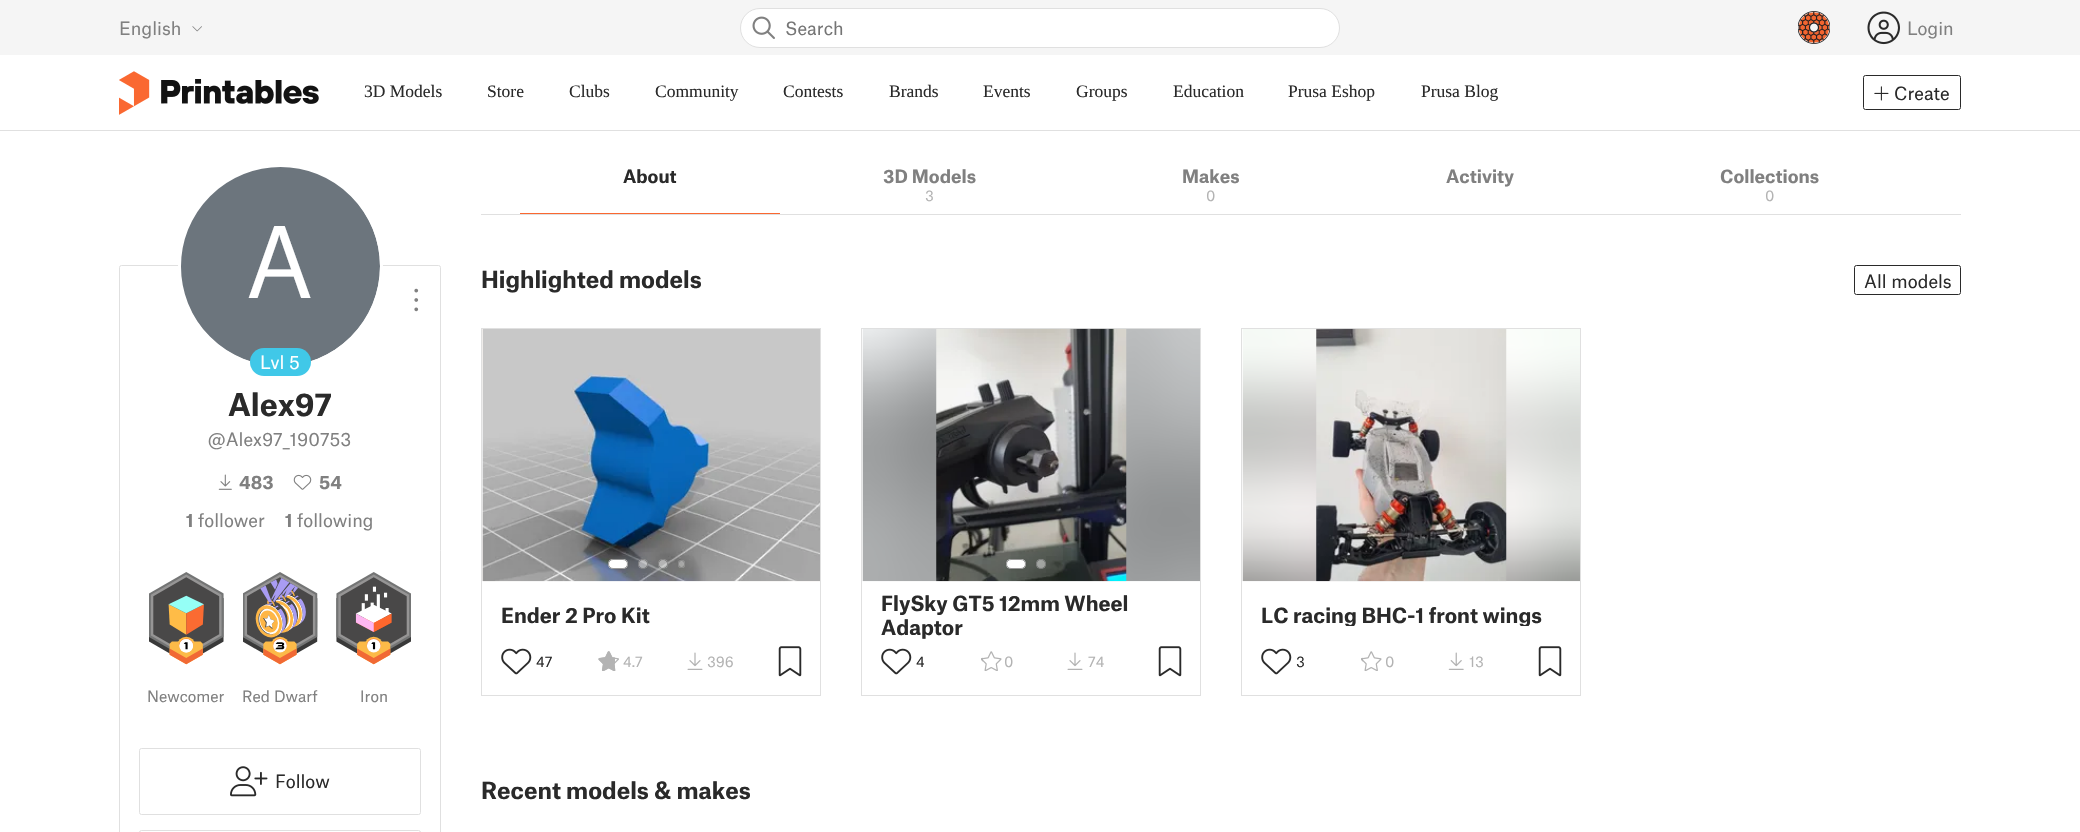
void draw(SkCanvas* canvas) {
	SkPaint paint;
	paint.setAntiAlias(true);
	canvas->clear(0xffffffff);
	paint.setColor(0xfff5f5f5);
	canvas->drawRect(SkRect::MakeXYWH(0, 0, 2080, 55), paint);
	SkFont f1(fontMgr->matchFamilyStyle("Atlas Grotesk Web", SkFontStyle::Normal()), 17.5);
	f1.setSubpixel(true);
	paint.setColor(0xff808080);
	canvas->drawString("English", 119, 35, f1, paint);
	canvas->drawImageRect(SkImages::DeferredFromEncodedData(SkData::MakeFromFileName("img1.png")), SkRect::MakeXYWH(192, 26, 10, 6), SkSamplingOptions());
	paint.setColor(0xffffffff);
	canvas->drawRoundRect(SkRect::MakeXYWH(740.5, 8.5, 599, 39), 19.5, 19.5, paint);
	paint.setStroke(true);
	paint.setStrokeWidth(1);
	paint.setColor(0xffe0e0e0);
	canvas->drawRoundRect(SkRect::MakeXYWH(740.5, 8.5, 599, 39), 19.5, 19.5, paint);
	canvas->drawImageRect(SkImages::DeferredFromEncodedData(SkData::MakeFromFileName("img2.png")), SkRect::MakeXYWH(752, 16, 23, 23), SkSamplingOptions());
	paint.setStroke(false);
	paint.setColor(0xff757575);
	canvas->drawString("Search", 785, 35, f1, paint);
	canvas->drawImageRect(SkImages::DeferredFromEncodedData(SkData::MakeFromFileName("img3.png")), SkRect::MakeXYWH(1798, 11, 32, 33), SkSamplingOptions());
	canvas->drawImageRect(SkImages::DeferredFromEncodedData(SkData::MakeFromFileName("img4.png")), SkRect::MakeXYWH(1867, 11, 33, 34), SkSamplingOptions());
	paint.setColor(0xff808080);
	canvas->drawString("Login", 1907, 35, f1, paint);
	paint.setColor(0xffe0e0e0);
	canvas->drawRect(SkRect::MakeXYWH(0, 130, 2080, 1), paint);
	canvas->drawImageRect(SkImages::DeferredFromEncodedData(SkData::MakeFromFileName("img5.png")), SkRect::MakeXYWH(119, 71, 200, 44), SkSamplingOptions());
	SkFont f2(fontMgr->matchFamilyStyle("Liberation Serif", SkFontStyle::Normal()), 17.5);
	f2.setSubpixel(true);
	paint.setColor(0xff2a2a2a);
	canvas->drawString("3D Models", 364, 97, f2, paint);
	canvas->drawString("Store", 487, 97, f2, paint);
	canvas->drawString("Clubs", 569, 97, f2, paint);
	canvas->drawString("Community", 655, 97, f2, paint);
	canvas->drawString("Contests", 783, 97, f2, paint);
	canvas->drawString("Brands", 889, 97, f2, paint);
	canvas->drawString("Events", 983, 97, f2, paint);
	canvas->drawString("Groups", 1076, 97, f2, paint);
	canvas->drawString("Education", 1173, 97, f2, paint);
	canvas->drawString("Prusa Eshop", 1288, 97, f2, paint);
	canvas->drawString("Prusa Blog", 1421, 97, f2, paint);
	paint.setStroke(true);
	canvas->drawRoundRect(SkRect::MakeXYWH(1863.5, 75.5, 97, 34), 2, 2, paint);
	canvas->drawImageRect(SkImages::DeferredFromEncodedData(SkData::MakeFromFileName("img6.png")), SkRect::MakeXYWH(1874, 86, 15, 15), SkSamplingOptions());
	paint.setStroke(false);
	canvas->drawString("Create", 1894, 100, f1, paint);
	paint.setStroke(true);
	paint.setColor(0xffe0e0e0);
	canvas->drawRoundRect(SkRect::MakeXYWH(119.5, 265.5, 321, 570), 2, 2, paint);
	paint.setStroke(false);
	paint.setColor(0xff6c757d);
	canvas->drawCircle(280, 266, 100, paint);
	paint.setStroke(true);
	paint.setStrokeWidth(3);
	paint.setColor(0xffffffff);
	canvas->drawCircle(280.5, 266.5, 101, paint);
	SkFont f3(fontMgr->matchFamilyStyle("Atlas Grotesk Web", SkFontStyle::Normal()), 94);
	f3.setSubpixel(true);
	paint.setStroke(false);
	canvas->drawString("A", 245, 298, f3, paint);
	paint.setColor(0xff40c8e8);
	canvas->drawRoundRect(SkRect::MakeXYWH(250, 348, 61, 28), 14, 14, paint);
	paint.setColor(0xffffffff);
	canvas->drawString("Lvl 5", 260, 369, f1, paint);
	canvas->drawImageRect(SkImages::DeferredFromEncodedData(SkData::MakeFromFileName("img7.png")), SkRect::MakeXYWH(414, 288, 5, 24), SkSamplingOptions());
	SkFont f4(fontMgr->matchFamilyStyle("Atlas Grotesk Web", SkFontStyle::Bold()), 30);
	f4.setSubpixel(true);
	paint.setColor(0xff2a2a2a);
	canvas->drawString("Alex97", 228, 416, f4, paint);
	paint.setColor(0xff808080);
	canvas->drawString("@Alex97_190753", 208, 446, f1, paint);
	canvas->drawImageRect(SkImages::DeferredFromEncodedData(SkData::MakeFromFileName("img8.png")), SkRect::MakeXYWH(218, 474, 14, 16), SkSamplingOptions());
	SkFont f5(fontMgr->matchFamilyStyle("Atlas Grotesk Web", SkFontStyle::Bold()), 17.5);
	f5.setSubpixel(true);
	canvas->drawString("483", 239, 489, f5, paint);
	canvas->drawImageRect(SkImages::DeferredFromEncodedData(SkData::MakeFromFileName("img9.png")), SkRect::MakeXYWH(293, 474, 19, 16), SkSamplingOptions());
	canvas->drawString("54", 319, 489, f5, paint);
	canvas->drawString("1", 186, 527, f5, paint);
	canvas->drawString("follower", 198, 527, f1, paint);
	canvas->drawString("1", 285, 527, f5, paint);
	canvas->drawString("following", 297, 527, f1, paint);
	canvas->drawImageRect(SkImages::DeferredFromEncodedData(SkData::MakeFromFileName("img10.png")), SkRect::MakeXYWH(149, 572, 75, 93), SkSamplingOptions());
	SkFont f6(fontMgr->matchFamilyStyle("Atlas Grotesk Web", SkFontStyle::Normal()), 15);
	f6.setSubpixel(true);
	canvas->drawString("Newcomer", 147, 702, f6, paint);
	canvas->drawImageRect(SkImages::DeferredFromEncodedData(SkData::MakeFromFileName("img11.png")), SkRect::MakeXYWH(243, 572, 75, 93), SkSamplingOptions());
	canvas->drawString("Red Dwarf", 242, 702, f6, paint);
	canvas->drawImageRect(SkImages::DeferredFromEncodedData(SkData::MakeFromFileName("img12.png")), SkRect::MakeXYWH(336, 572, 75, 93), SkSamplingOptions());
	canvas->drawString("Iron", 360, 702, f6, paint);
	paint.setStroke(true);
	paint.setStrokeWidth(1);
	paint.setColor(0xffe0e0e0);
	canvas->drawRoundRect(SkRect::MakeXYWH(139.5, 748.5, 281, 66), 2, 2, paint);
	canvas->drawImageRect(SkImages::DeferredFromEncodedData(SkData::MakeFromFileName("img13.png")), SkRect::MakeXYWH(230, 766, 38, 31), SkSamplingOptions());
	paint.setStroke(false);
	paint.setColor(0xff2a2a2a);
	canvas->drawString("Follow", 275, 788, f1, paint);
	paint.setStroke(true);
	paint.setColor(0xffe0e0e0);
	canvas->drawRoundRect(SkRect::MakeXYWH(139.5, 830.5, 281, 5), 2, 2, paint);
	paint.setStroke(false);
	canvas->drawRect(SkRect::MakeXYWH(481, 214, 1480, 1), paint);
	paint.setColor(0xfffa6831);
	canvas->drawRect(SkRect::MakeXYWH(520, 213, 260, 1), paint);
	paint.setColor(0xff2a2a2a);
	canvas->drawString("About", 623, 183, f5, paint);
	paint.setColor(0xff808080);
	canvas->drawString("3D Models", 883, 183, f5, paint);
	SkFont f7(fontMgr->matchFamilyStyle("Atlas Grotesk Web", SkFontStyle::Normal()), 14);
	f7.setSubpixel(true);
	paint.setColor(0xffb3b3b3);
	canvas->drawString("3", 925, 201, f7, paint);
	paint.setColor(0xff808080);
	canvas->drawString("Makes", 1182, 183, f5, paint);
	paint.setColor(0xffb3b3b3);
	canvas->drawString("0", 1206, 201, f7, paint);
	paint.setColor(0xff808080);
	canvas->drawString("Activity", 1446, 183, f5, paint);
	canvas->drawString("Collections", 1720, 183, f5, paint);
	paint.setColor(0xffb3b3b3);
	canvas->drawString("0", 1765, 201, f7, paint);
	SkFont f8(fontMgr->matchFamilyStyle("Atlas Grotesk Web", SkFontStyle::Bold()), 22.5);
	f8.setSubpixel(true);
	paint.setColor(0xff2a2a2a);
	canvas->drawString("Highlighted models", 481, 288, f8, paint);
	paint.setStroke(true);
	canvas->drawRoundRect(SkRect::MakeXYWH(1854.5, 265.5, 106, 29), 2, 2, paint);
	paint.setStroke(false);
	canvas->drawString("All models", 1864, 288, f1, paint);
	paint.setStroke(true);
	paint.setColor(0xffe0e0e0);
	canvas->drawRect(SkRect::MakeXYWH(481.5, 328.5, 339, 367), paint);
	canvas->drawImageRect(SkImages::DeferredFromEncodedData(SkData::MakeFromFileName("img14.png")), SkRect::MakeXYWH(482, 329, 338, 253), SkSamplingOptions());
	canvas->drawImageRect(SkImages::DeferredFromEncodedData(SkData::MakeFromFileName("img15.png")), SkRect::MakeXYWH(482, 329, 338, 253), SkSamplingOptions());
	paint.setStroke(false);
	paint.setColor(0x452a2a2a);
	paint.setMaskFilter(SkMaskFilter::MakeBlur(kNormal_SkBlurStyle, 2));
	canvas->drawRoundRect(SkRect::MakeXYWH(609, 560, 17, 8), 4, 4, paint);
	paint.setMaskFilter(nullptr);
	paint.setColor(0xffffffff);
	canvas->drawRoundRect(SkRect::MakeXYWH(608, 559, 20, 10), 5, 5, paint);
	paint.setStroke(true);
	paint.setColor(0xab666666);
	canvas->drawRoundRect(SkRect::MakeXYWH(608.5, 559.5, 19, 9), 4.5, 4.5, paint);
	paint.setStroke(false);
	paint.setColor(0x78ffffff);
	canvas->drawCircle(643, 564, 5, paint);
	paint.setStroke(true);
	paint.setColor(0xab666666);
	canvas->drawCircle(643, 564, 4.5, paint);
	paint.setStroke(false);
	paint.setColor(0x78ffffff);
	canvas->drawCircle(663, 564, 5, paint);
	paint.setStroke(true);
	paint.setColor(0xab666666);
	canvas->drawCircle(663, 564, 4.5, paint);
	paint.setStroke(false);
	paint.setColor(0x5effffff);
	canvas->drawRoundRect(SkRect::MakeXYWH(678, 560, 7, 8), 3.5, 3.5, paint);
	paint.setStroke(true);
	paint.setColor(0x87666666);
	canvas->drawRoundRect(SkRect::MakeXYWH(678.5, 560.5, 6, 7), 3, 3, paint);
	SkFont f9(fontMgr->matchFamilyStyle("Atlas Grotesk Web", SkFontStyle::Bold()), 20);
	f9.setSubpixel(true);
	paint.setStroke(false);
	paint.setColor(0xff2a2a2a);
	canvas->drawString("Ender 2 Pro Kit", 501, 623, f9, paint);
	canvas->drawImageRect(SkImages::DeferredFromEncodedData(SkData::MakeFromFileName("img16.png")), SkRect::MakeXYWH(501, 648, 31, 27), SkSamplingOptions());
	canvas->drawString("47", 536, 667, f7, paint);
	canvas->drawImageRect(SkImages::DeferredFromEncodedData(SkData::MakeFromFileName("img17.png")), SkRect::MakeXYWH(598, 651, 21, 20), SkSamplingOptions());
	canvas->drawImageRect(SkImages::DeferredFromEncodedData(SkData::MakeFromFileName("img18.png")), SkRect::MakeXYWH(598, 651, 17, 20), SkSamplingOptions());
	paint.setColor(0xffb3b3b3);
	canvas->drawString("4.7", 623, 667, f7, paint);
	canvas->drawImageRect(SkImages::DeferredFromEncodedData(SkData::MakeFromFileName("img19.png")), SkRect::MakeXYWH(687, 652, 16, 18), SkSamplingOptions());
	canvas->drawString("396", 707, 667, f7, paint);
	canvas->drawImageRect(SkImages::DeferredFromEncodedData(SkData::MakeFromFileName("img20.png")), SkRect::MakeXYWH(778, 646, 24, 31), SkSamplingOptions());
	paint.setStroke(true);
	paint.setColor(0xffe0e0e0);
	canvas->drawRect(SkRect::MakeXYWH(861.5, 328.5, 339, 367), paint);
	canvas->drawImageRect(SkImages::DeferredFromEncodedData(SkData::MakeFromFileName("img21.png")), SkRect::MakeXYWH(862, 328, 338, 254), SkSamplingOptions());
	canvas->drawImageRect(SkImages::DeferredFromEncodedData(SkData::MakeFromFileName("img22.png")), SkRect::MakeXYWH(936, 328, 191, 254), SkSamplingOptions());
	paint.setStroke(false);
	paint.setColor(0x452a2a2a);
	paint.setMaskFilter(SkMaskFilter::MakeBlur(kNormal_SkBlurStyle, 2));
	canvas->drawRoundRect(SkRect::MakeXYWH(1008, 560, 17, 8), 4, 4, paint);
	paint.setMaskFilter(nullptr);
	paint.setColor(0xffffffff);
	canvas->drawRoundRect(SkRect::MakeXYWH(1006, 559, 20, 10), 5, 5, paint);
	paint.setStroke(true);
	paint.setColor(0xab666666);
	canvas->drawRoundRect(SkRect::MakeXYWH(1006.5, 559.5, 19, 9), 4.5, 4.5, paint);
	paint.setStroke(false);
	paint.setColor(0x78ffffff);
	canvas->drawCircle(1041, 564, 5, paint);
	paint.setStroke(true);
	paint.setColor(0xab666666);
	canvas->drawCircle(1041, 564, 4.5, paint);
	paint.setStroke(false);
	paint.setColor(0xff2a2a2a);
	canvas->drawString("FlySky GT5 12mm Wheel", 881, 611, f9, paint);
	canvas->drawString("Adaptor", 881, 635, f9, paint);
	canvas->drawImageRect(SkImages::DeferredFromEncodedData(SkData::MakeFromFileName("img16.png")), SkRect::MakeXYWH(881, 648, 31, 27), SkSamplingOptions());
	canvas->drawString("4", 916, 667, f7, paint);
	canvas->drawImageRect(SkImages::DeferredFromEncodedData(SkData::MakeFromFileName("img23.png")), SkRect::MakeXYWH(981, 651, 21, 20), SkSamplingOptions());
	canvas->drawImageRect(SkImages::DeferredFromEncodedData(SkData::MakeFromFileName("img24.png")), SkRect::MakeXYWH(981, 657, 2, 5), SkSamplingOptions());
	paint.setColor(0xffb3b3b3);
	canvas->drawString("0", 1004, 667, f7, paint);
	canvas->drawImageRect(SkImages::DeferredFromEncodedData(SkData::MakeFromFileName("img19.png")), SkRect::MakeXYWH(1067, 652, 16, 18), SkSamplingOptions());
	canvas->drawString("74", 1088, 667, f7, paint);
	canvas->drawImageRect(SkImages::DeferredFromEncodedData(SkData::MakeFromFileName("img20.png")), SkRect::MakeXYWH(1158, 646, 24, 31), SkSamplingOptions());
	paint.setStroke(true);
	paint.setColor(0xffe0e0e0);
	canvas->drawRect(SkRect::MakeXYWH(1241.5, 328.5, 339, 367), paint);
	canvas->drawImageRect(SkImages::DeferredFromEncodedData(SkData::MakeFromFileName("img26.png")), SkRect::MakeXYWH(1242, 329, 338, 253), SkSamplingOptions());
	canvas->drawImageRect(SkImages::DeferredFromEncodedData(SkData::MakeFromFileName("img25.png")), SkRect::MakeXYWH(1316, 328, 191, 254), SkSamplingOptions());
	canvas->save();
	canvas->clipRect(SkRect::MakeXYWH(1261, 603, 282, 23));
	paint.setStroke(false);
	paint.setColor(0xff2a2a2a);
	canvas->drawString("LC racing BHC-1 front wings", 1261, 623, f9, paint);
	canvas->restore();
	canvas->drawImageRect(SkImages::DeferredFromEncodedData(SkData::MakeFromFileName("img16.png")), SkRect::MakeXYWH(1261, 648, 31, 27), SkSamplingOptions());
	canvas->drawString("3", 1296, 667, f7, paint);
	canvas->drawImageRect(SkImages::DeferredFromEncodedData(SkData::MakeFromFileName("img23.png")), SkRect::MakeXYWH(1361, 651, 21, 20), SkSamplingOptions());
	canvas->drawImageRect(SkImages::DeferredFromEncodedData(SkData::MakeFromFileName("img24.png")), SkRect::MakeXYWH(1361, 657, 2, 5), SkSamplingOptions());
	paint.setColor(0xffb3b3b3);
	canvas->drawString("0", 1385, 667, f7, paint);
	canvas->drawImageRect(SkImages::DeferredFromEncodedData(SkData::MakeFromFileName("img27.png")), SkRect::MakeXYWH(1448, 652, 16, 18), SkSamplingOptions());
	canvas->drawString("13", 1469, 667, f7, paint);
	canvas->drawImageRect(SkImages::DeferredFromEncodedData(SkData::MakeFromFileName("img20.png")), SkRect::MakeXYWH(1538, 646, 24, 31), SkSamplingOptions());
	paint.setColor(0xff2a2a2a);
	canvas->drawString("Recent models & makes", 481, 799, f8, paint);
}
